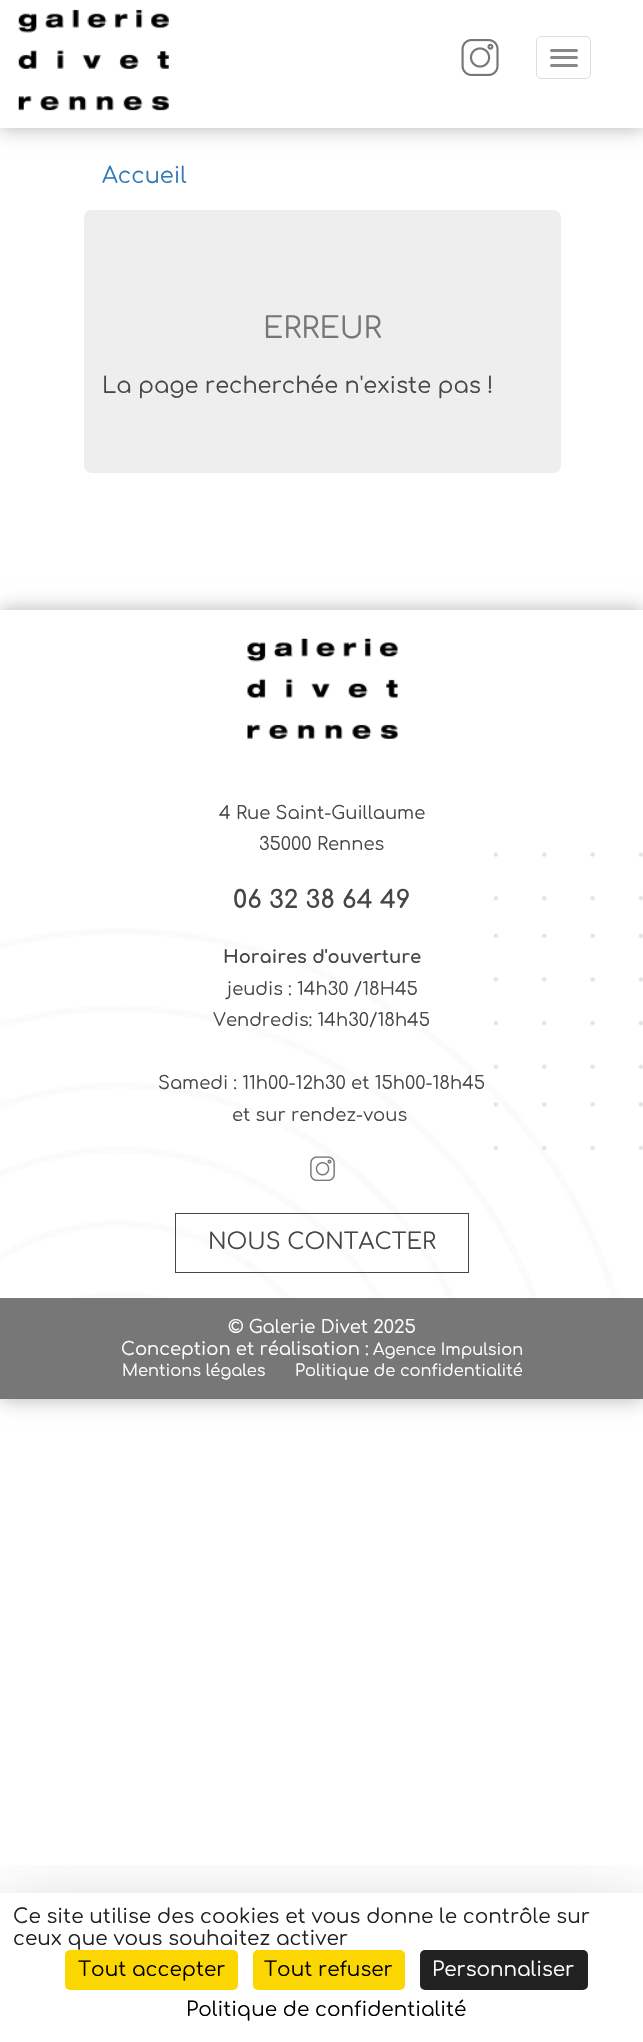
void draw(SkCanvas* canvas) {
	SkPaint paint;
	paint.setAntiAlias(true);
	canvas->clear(0xffffffff);
	paint.setColor(0x4d000000);
	paint.setMaskFilter(SkMaskFilter::MakeBlur(kNormal_SkBlurStyle, 9.5));
	canvas->drawRect(SkRect::MakeXYWH(0, 0, 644, 128), paint);
	paint.setMaskFilter(nullptr);
	paint.setColor(0xffffffff);
	canvas->drawRect(SkRect::MakeXYWH(0, 0, 643, 128), paint);
	canvas->drawImageRect(SkImages::DeferredFromEncodedData(SkData::MakeFromFileName("img1.png")), SkRect::MakeXYWH(18, 9, 151, 102), SkSamplingOptions());
	canvas->drawImageRect(SkImages::DeferredFromEncodedData(SkData::MakeFromFileName("img2.png")), SkRect::MakeXYWH(461, 39, 38, 37), SkSamplingOptions());
	paint.setStroke(true);
	paint.setStrokeWidth(1);
	paint.setColor(0xffdddddd);
	canvas->drawRoundRect(SkRect::MakeXYWH(536.5, 36.5, 54, 42), 4.5, 4.5, paint);
	paint.setStroke(false);
	paint.setColor(0xff888888);
	canvas->drawRoundRect(SkRect::MakeXYWH(550, 49, 28, 3), 1.5, 1.5, paint);
	canvas->drawRoundRect(SkRect::MakeXYWH(550, 56, 28, 3), 1.5, 1.5, paint);
	canvas->drawRoundRect(SkRect::MakeXYWH(550, 64, 28, 3), 1.5, 1.5, paint);
	SkFont f1(fontMgr->matchFamilyStyle("Comfortaa", SkFontStyle::Normal()), 22.5);
	f1.setSubpixel(true);
	paint.setColor(0xff337ab7);
	canvas->drawString("Accueil", 102, 183, f1, paint);
	paint.setColor(0xffeeeeee);
	canvas->drawRoundRect(SkRect::MakeXYWH(84, 210, 477, 263), 8, 8, paint);
	SkFont f2(fontMgr->matchFamilyStyle("Comfortaa", SkFontStyle::Normal()), 29.25);
	f2.setSubpixel(true);
	paint.setColor(0xff777777);
	canvas->drawString("ERREUR", 263, 338, f2, paint);
	paint.setColor(0xff474747);
	canvas->drawString("La page recherchée n'existe pas !", 102, 393, f1, paint);
	paint.setColor(0x4d000000);
	paint.setMaskFilter(SkMaskFilter::MakeBlur(kNormal_SkBlurStyle, 9.5));
	canvas->drawRect(SkRect::MakeXYWH(0, 610, 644, 789), paint);
	paint.setMaskFilter(nullptr);
	paint.setColor(0xffffffff);
	canvas->drawRect(SkRect::MakeXYWH(0, 610, 643, 688), paint);
	canvas->drawImageRect(SkImages::DeferredFromEncodedData(SkData::MakeFromFileName("img3.png")), SkRect::MakeXYWH(247, 638, 151, 101), SkSamplingOptions());
	SkFont f3(fontMgr->matchFamilyStyle("Comfortaa", SkFontStyle::Normal()), 18);
	f3.setSubpixel(true);
	paint.setColor(0xff474747);
	canvas->drawString("4 Rue Saint-Guillaume", 219, 819, f3, paint);
	canvas->drawString("35000 Rennes", 259, 850, f3, paint);
	SkFont f4(fontMgr->matchFamilyStyle("Comfortaa", SkFontStyle::Bold()), 24.75);
	f4.setSubpixel(true);
	canvas->drawString("06 32 38 64 49", 233, 908, f4, paint);
	canvas->drawImageRect(SkImages::DeferredFromEncodedData(SkData::MakeFromFileName("img6.png")), SkRect::MakeXYWH(0, 928, 619, 370), SkSamplingOptions());
	SkFont f5(fontMgr->matchFamilyStyle("Comfortaa", SkFontStyle::Bold()), 18);
	f5.setSubpixel(true);
	canvas->drawString("Horaires d'ouverture", 223, 963, f5, paint);
	canvas->drawString("jeudis : 14h30 /18H45", 227, 995, f3, paint);
	canvas->drawString("Vendredis: 14h30/18h45", 213, 1026, f3, paint);
	canvas->drawString("Samedi : 11h00-12h30 et 15h00-18h45", 158, 1089, f3, paint);
	canvas->drawString("et sur rendez-vous", 232, 1121, f3, paint);
	canvas->drawImageRect(SkImages::DeferredFromEncodedData(SkData::MakeFromFileName("img4.png")), SkRect::MakeXYWH(310, 1156, 25, 25), SkSamplingOptions());
	canvas->drawImageRect(SkImages::DeferredFromEncodedData(SkData::MakeFromFileName("img5.png")), SkRect::MakeXYWH(493, 852, 150, 298), SkSamplingOptions());
	paint.setStroke(true);
	canvas->drawRect(SkRect::MakeXYWH(175.5, 1213.5, 293, 59), paint);
	paint.setStroke(false);
	canvas->drawString("NOUS CONTACTER", 208, 1249, f1, paint);
	paint.setColor(0xff777777);
	canvas->drawRect(SkRect::MakeXYWH(0, 1298, 643, 101), paint);
	paint.setColor(0xffffffff);
	canvas->drawString("© Galerie Divet 2025", 228, 1333, f3, paint);
	canvas->drawString("Conception et réalisation :", 121, 1355, f3, paint);
	SkFont f6(fontMgr->matchFamilyStyle("Comfortaa", SkFontStyle::Normal()), 16.25);
	f6.setSubpixel(true);
	canvas->drawString("Agence Impulsion", 373, 1355, f6, paint);
	canvas->drawString("Mentions légales", 122, 1376, f6, paint);
	canvas->drawString("Politique de confidentialité", 295, 1376, f6, paint);
	canvas->save();
	canvas->clipRect(SkRect::MakeXYWH(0, 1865, 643, 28));
	paint.setColor(0x40000000);
	paint.setMaskFilter(SkMaskFilter::MakeBlur(kNormal_SkBlurStyle, 37.5));
	canvas->drawRect(SkRect::MakeXYWH(0, 1918, 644, 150), paint);
	paint.setMaskFilter(nullptr);
	canvas->restore();
	SkFont f7(fontMgr->matchFamilyStyle("Comfortaa", SkFontStyle::Normal()), 20);
	f7.setSubpixel(true);
	paint.setColor(0xff222222);
	canvas->drawString("Ce site utilise des cookies et vous donne le contrôle sur", 13, 1923, f7, paint);
	canvas->drawString("ceux que vous souhaitez activer", 13, 1945, f7, paint);
	paint.setColor(0xfffbd600);
	canvas->drawRoundRect(SkRect::MakeXYWH(65, 1950, 173, 40), 5, 5, paint);
	paint.setColor(0xff000000);
	canvas->drawString("Tout accepter", 78, 1976, f7, paint);
	paint.setColor(0xfffbd600);
	canvas->drawRoundRect(SkRect::MakeXYWH(253, 1950, 152, 40), 5, 5, paint);
	paint.setColor(0xff000000);
	canvas->drawString("Tout refuser", 264, 1976, f7, paint);
	paint.setColor(0xff222222);
	canvas->drawRoundRect(SkRect::MakeXYWH(420, 1950, 168, 40), 5, 5, paint);
	paint.setColor(0xffffffff);
	canvas->drawString("Personnaliser", 432, 1976, f7, paint);
	paint.setColor(0xff000000);
	canvas->drawString("Politique de confidentialité", 186, 2016, f7, paint);
}
